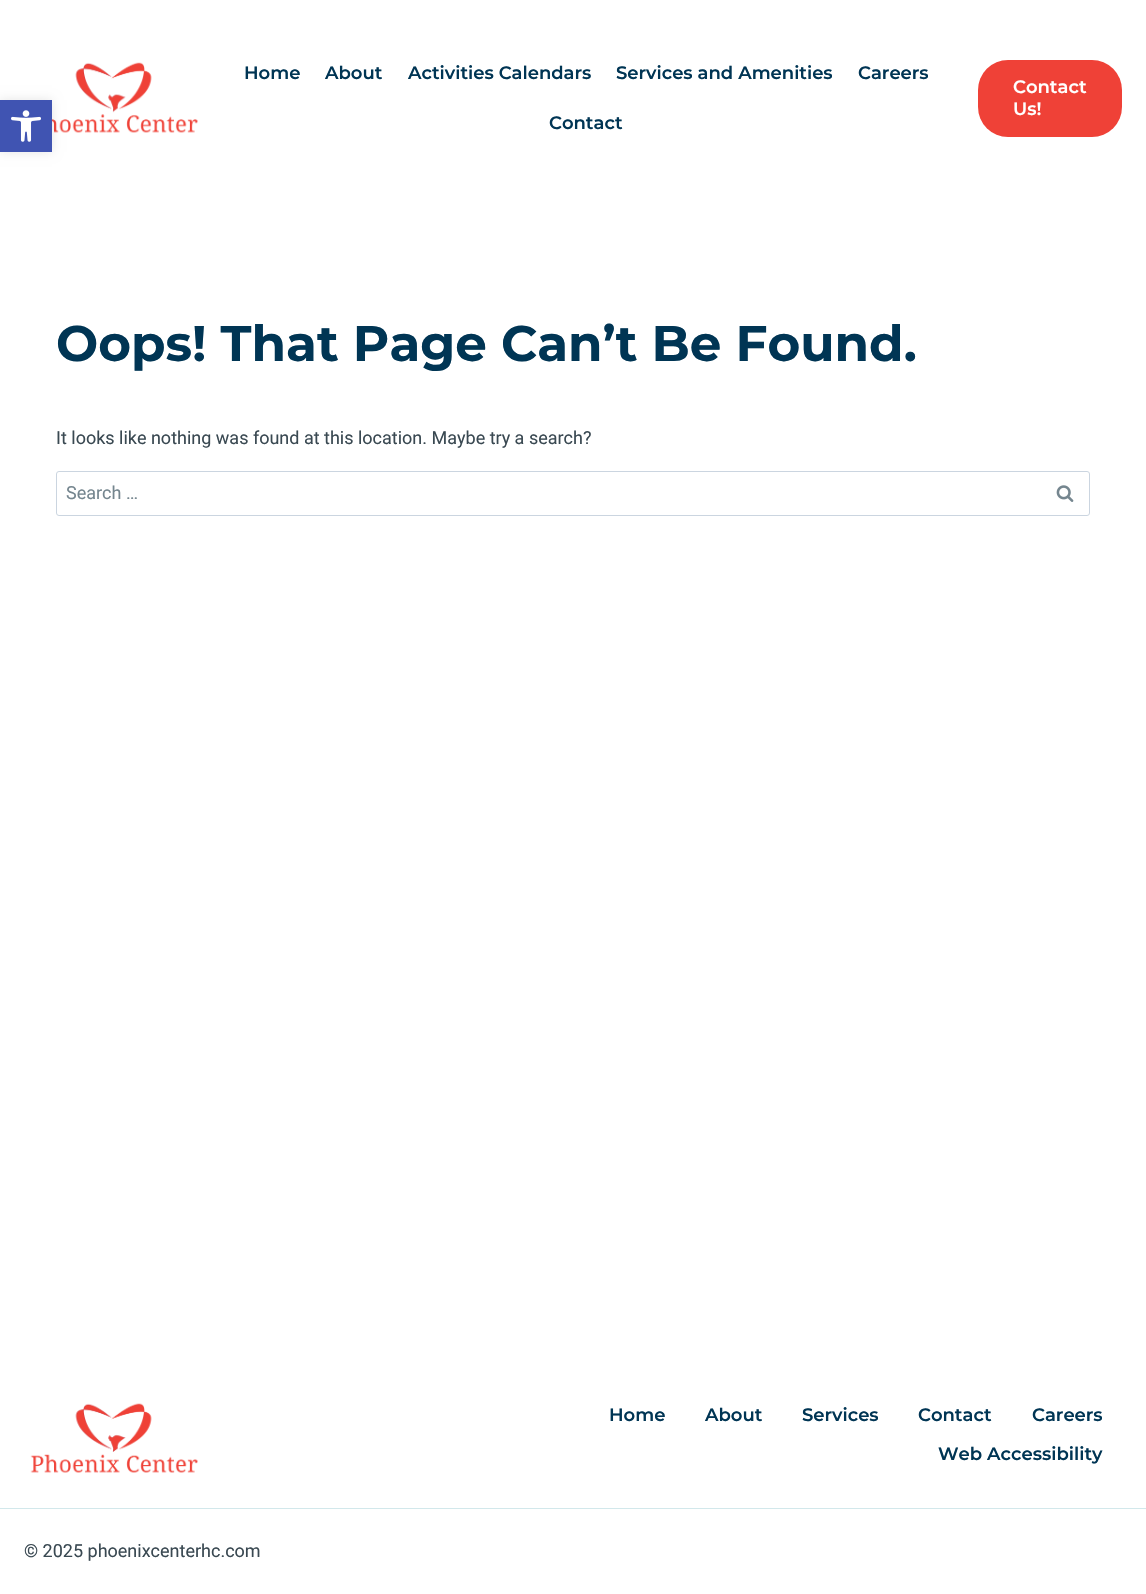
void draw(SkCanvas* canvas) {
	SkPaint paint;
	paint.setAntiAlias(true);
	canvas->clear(0xffffffff);
	canvas->drawImageRect(SkImages::DeferredFromEncodedData(SkData::MakeFromFileName("img1.png")), SkRect::MakeXYWH(52, 62, 146, 71), SkSamplingOptions());
	SkFont f1(fontMgr->matchFamilyStyle("Montserrat", SkFontStyle(600, SkFontStyle::kNormal_Width, SkFontStyle::kUpright_Slant)), 18);
	f1.setSubpixel(true);
	paint.setColor(0xff003554);
	canvas->drawString("Home", 244, 79, f1, paint);
	canvas->drawString("About", 325, 79, f1, paint);
	canvas->drawString("Activities Calendars", 408, 79, f1, paint);
	canvas->drawString("Services and Amenities", 616, 79, f1, paint);
	canvas->drawString("Careers", 858, 79, f1, paint);
	canvas->drawString("Contact", 549, 129, f1, paint);
	paint.setColor(0xffef4137);
	canvas->drawRoundRect(SkRect::MakeXYWH(978, 60, 144, 77), 30, 30, paint);
	paint.setColor(0xffffffff);
	canvas->drawString("Contact", 1013, 93, f1, paint);
	canvas->drawString("Us!", 1013, 115, f1, paint);
	SkFont f2(fontMgr->matchFamilyStyle("Montserrat", SkFontStyle::Bold()), 50);
	f2.setSubpixel(true);
	paint.setColor(0xff003554);
	canvas->drawString("Oops! That Page Can’t Be Found.", 56, 361, f2, paint);
	SkFont f3(fontMgr->matchFamilyStyle("Roboto", SkFontStyle::Normal()), 18);
	f3.setSubpixel(true);
	paint.setColor(0xff3a4952);
	canvas->drawString("It looks like nothing was found at this location. Maybe try a search?", 56, 444, f3, paint);
	paint.setStroke(true);
	paint.setStrokeWidth(1);
	paint.setColor(0xffcbd5e0);
	canvas->drawRoundRect(SkRect::MakeXYWH(56.5, 471.5, 1033, 44), 2.5, 2.5, paint);
	paint.setStroke(false);
	paint.setColor(0xff75868f);
	canvas->drawString("Search …", 66, 499, f3, paint);
	canvas->drawImageRect(SkImages::DeferredFromEncodedData(SkData::MakeFromFileName("img2.png")), SkRect::MakeXYWH(1056, 485, 18, 17), SkSamplingOptions());
	canvas->drawImageRect(SkImages::DeferredFromEncodedData(SkData::MakeFromFileName("img3.png")), SkRect::MakeXYWH(30, 1403, 168, 70), SkSamplingOptions());
	paint.setColor(0xff003554);
	canvas->drawString("Home", 609, 1421, f1, paint);
	canvas->drawString("About", 705, 1421, f1, paint);
	canvas->drawString("Services", 802, 1421, f1, paint);
	canvas->drawString("Contact", 918, 1421, f1, paint);
	canvas->drawString("Careers", 1032, 1421, f1, paint);
	canvas->drawString("Web Accessibility", 938, 1460, f1, paint);
	paint.setColor(0xffd2e8eb);
	canvas->drawRect(SkRect::MakeXYWH(0, 1508, 1146, 1), paint);
	paint.setColor(0xff3a4952);
	canvas->drawString("© 2025 phoenixcenterhc.com", 24, 1557, f3, paint);
	paint.setColor(0x1a000000);
	paint.setMaskFilter(SkMaskFilter::MakeBlur(kNormal_SkBlurStyle, 5));
	canvas->drawRect(SkRect::MakeXYWH(0, 100, 52, 52), paint);
	paint.setMaskFilter(nullptr);
	paint.setColor(0xff4054b2);
	canvas->drawRect(SkRect::MakeXYWH(0, 100, 52, 52), paint);
	canvas->drawImageRect(SkImages::DeferredFromEncodedData(SkData::MakeFromFileName("img4.png")), SkRect::MakeXYWH(11, 110, 30, 32), SkSamplingOptions());
}
